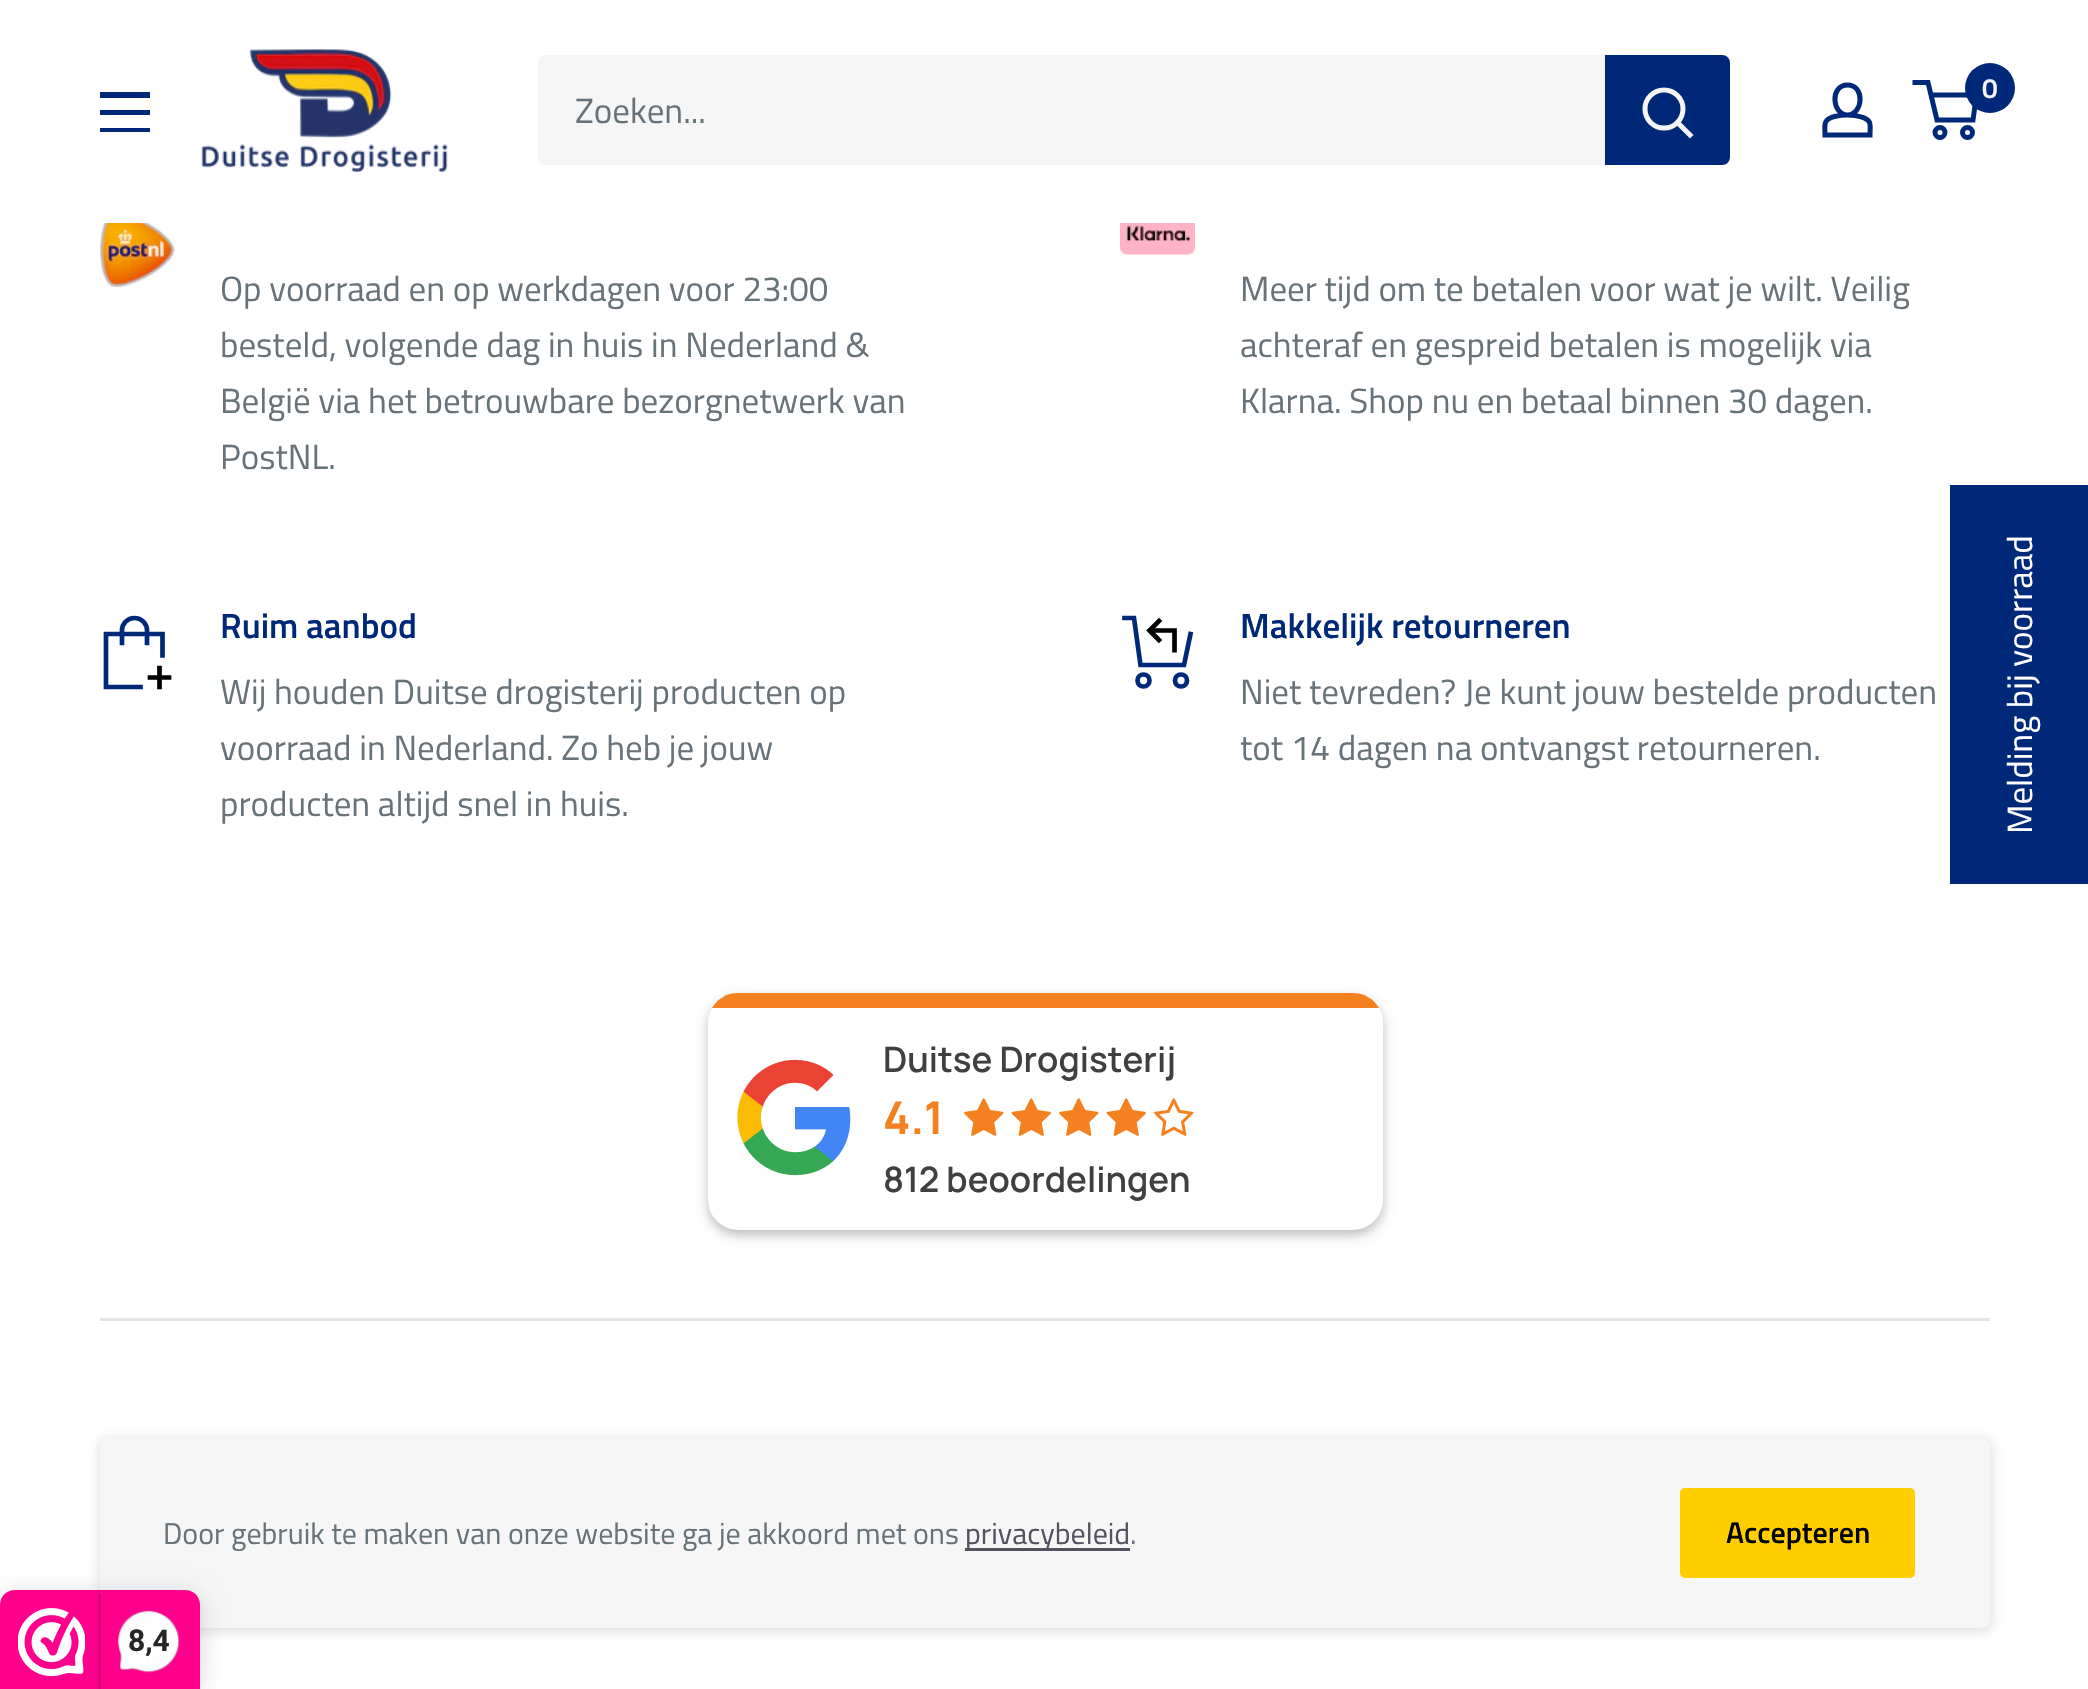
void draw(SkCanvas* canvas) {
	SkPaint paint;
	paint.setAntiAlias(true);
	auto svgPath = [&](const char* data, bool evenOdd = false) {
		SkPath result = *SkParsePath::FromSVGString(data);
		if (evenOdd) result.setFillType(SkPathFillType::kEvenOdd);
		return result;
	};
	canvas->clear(0xffffffff);
	canvas->drawImageRect(SkImages::DeferredFromEncodedData(SkData::MakeFromFileName("img1.png")), SkRect::MakeXYWH(201, 49, 247, 123), SkSamplingOptions());
	paint.setStroke(true);
	paint.setStrokeWidth(5);
	paint.setColor(0xff002878);
	canvas->drawPath(svgPath("M1847.5 115C1852 115 1857 115.5 1861.5 117C1872.5 120 1870 125.5 1870 135H1825C1825 125 1822.5 119.5 1834.5 116.5C1838.5 115.5 1843 115 1847.5 115ZM1847.5 115C1832 115 1829.5 85 1847.5 85C1865.5 85 1863 115 1847.5 115Z"), paint);
	canvas->drawCircle(1940, 132.5, 5, paint);
	canvas->drawCircle(1967.5, 132.5, 5, paint);
	canvas->drawPath(svgPath("M1931 95H1976.5L1973 120H1937L1928 82.5H1912.5"), paint);
	paint.setStroke(false);
	canvas->drawCircle(1990, 88, 25, paint);
	SkFont f1(fontMgr->matchFamilyStyle("Titillium Web", SkFontStyle(600, SkFontStyle::kNormal_Width, SkFontStyle::kUpright_Slant)), 28);
	f1.setSubpixel(true);
	paint.setColor(0xfff6f6f7);
	canvas->drawString("0", 1982, 98, f1, paint);
	paint.setColor(0xff002878);
	canvas->drawPath(svgPath("M100 128H150V132H100ZM100 92H150V98H100ZM100 110H150V115H100Z", true), paint);
	paint.setColor(0xfff6f6f7);
	canvas->drawRoundRect(SkRect::MakeXYWH(538, 55, 1192, 110), 8, 8, paint);
	SkFont f2(fontMgr->matchFamilyStyle("Titillium Web", SkFontStyle::Normal()), 35);
	f2.setSubpixel(true);
	paint.setColor(0xff677279);
	canvas->drawString("Zoeken...", 575, 123, f2, paint);
	paint.setColor(0xff002878);
	canvas->drawPath(svgPath("M1605 55H1722C1726.5 55 1730 58.5 1730 63V157C1730 161.5 1726.5 165 1722 165H1605Z"), paint);
	paint.setStroke(true);
	paint.setStrokeCap(SkPaint::kSquare_Cap);
	paint.setColor(0xfff6f6f7);
	canvas->drawPath(svgPath("M1690 135L1677.5 122.5"), paint);
	paint.setStrokeCap(SkPaint::kButt_Cap);
	canvas->drawCircle(1664, 109, 19, paint);
	canvas->drawImageRect(SkImages::DeferredFromEncodedData(SkData::MakeFromFileName("img2.png")), SkRect::MakeXYWH(100, 223, 75, 64), SkSamplingOptions());
	paint.setStroke(false);
	paint.setColor(0xff677279);
	canvas->drawString("Op voorraad en op werkdagen voor 23:00", 220, 301, f2, paint);
	canvas->drawString("besteld, volgende dag in huis in Nederland &", 220, 357, f2, paint);
	canvas->drawString("België via het betrouwbare bezorgnetwerk van", 220, 413, f2, paint);
	canvas->drawString("PostNL.", 220, 469, f2, paint);
	canvas->drawImageRect(SkImages::DeferredFromEncodedData(SkData::MakeFromFileName("img3.png")), SkRect::MakeXYWH(1120, 223, 75, 32), SkSamplingOptions());
	canvas->drawString("Meer tijd om te betalen voor wat je wilt. Veilig", 1240, 301, f2, paint);
	canvas->drawString("achteraf en gespreid betalen is mogelijk via", 1240, 357, f2, paint);
	canvas->drawString("Klarna. Shop nu en betaal binnen 30 dagen.", 1240, 413, f2, paint);
	paint.setStroke(true);
	paint.setStrokeWidth(4.7);
	paint.setStrokeCap(SkPaint::kSquare_Cap);
	paint.setColor(0xff002878);
	canvas->drawPath(svgPath("M140.5 687H106V634H162.5V655.5"), paint);
	canvas->drawPath(svgPath("M122 643V630.5C122 623.5 127.5 618 134.5 618C141.5 618 147 623.5 147 630.5V643"), paint);
	paint.setColor(0xff000000);
	canvas->drawPath(svgPath("M159.5 668V687M150 677.5H169"), paint);
	SkFont f3(fontMgr->matchFamilyStyle("Titillium Web", SkFontStyle(600, SkFontStyle::kNormal_Width, SkFontStyle::kUpright_Slant)), 35);
	f3.setSubpixel(true);
	paint.setStroke(false);
	paint.setColor(0xff002878);
	canvas->drawString("Ruim aanbod", 220, 638, f3, paint);
	paint.setColor(0xff677279);
	canvas->drawString("Wij houden Duitse drogisterij producten op", 220, 704, f2, paint);
	canvas->drawString("voorraad in Nederland. Zo heb je jouw", 220, 760, f2, paint);
	canvas->drawString("producten altijd snel in huis.", 220, 816, f2, paint);
	paint.setStroke(true);
	paint.setStrokeCap(SkPaint::kButt_Cap);
	paint.setColor(0xff000000);
	canvas->drawPath(svgPath("M1149.5 630.5H1174.5V652.5"), paint);
	paint.setStrokeCap(SkPaint::kSquare_Cap);
	canvas->drawPath(svgPath("M1159 640L1149.5 630.5L1159 621"), paint);
	paint.setColor(0xff002878);
	canvas->drawPath(svgPath("M1190.5 634L1184 665H1140.5L1134 618H1124.5"), paint);
	paint.setStrokeCap(SkPaint::kButt_Cap);
	canvas->drawCircle(1143.5, 680.5, 6, paint);
	canvas->drawCircle(1181, 680.5, 6, paint);
	paint.setStroke(false);
	canvas->drawString("Makkelijk retourneren", 1240, 638, f3, paint);
	paint.setColor(0xff677279);
	canvas->drawString("Niet tevreden? Je kunt jouw bestelde producten", 1240, 704, f2, paint);
	canvas->drawString("tot 14 dagen na ontvangst retourneren.", 1240, 760, f2, paint);
	paint.setColor(0x42000000);
	paint.setMaskFilter(SkMaskFilter::MakeBlur(kNormal_SkBlurStyle, 6));
	canvas->drawRoundRect(SkRect::MakeXYWH(708, 998, 675, 237), 30, 30, paint);
	paint.setMaskFilter(nullptr);
	canvas->save();
	canvas->clipPath(svgPath("M738 993H1353C1369.5 993 1383 1006.5 1383 1023V1200C1383 1216.5 1369.5 1230 1353 1230H738C721.5 1230 708 1216.5 708 1200V1023C708 1006.5 721.5 993 738 993Z"), true);
	paint.setColor(0xfff48120);
	canvas->drawRect(SkRect::MakeXYWH(712, 993, 667, 15), paint);
	paint.setColor(0xffffffff);
	canvas->drawPath(svgPath("M708 1008H1383V1200C1383 1216.5 1369.5 1230 1353 1230H738C721.5 1230 708 1216.5 708 1200Z"), paint);
	canvas->restore();
	canvas->drawImageRect(SkImages::DeferredFromEncodedData(SkData::MakeFromFileName("img4.png")), SkRect::MakeXYWH(737, 1059, 114, 117), SkSamplingOptions());
	SkFont f4(fontMgr->matchFamilyStyle("Manrope", SkFontStyle(600, SkFontStyle::kNormal_Width, SkFontStyle::kUpright_Slant)), 35);
	f4.setSubpixel(true);
	paint.setColor(0xff404040);
	canvas->drawString("Duitse Drogisterij", 883, 1072, f4, paint);
	SkFont f5(fontMgr->matchFamilyStyle("Manrope", SkFontStyle::Bold()), 45);
	f5.setSubpixel(true);
	paint.setColor(0xfff48120);
	canvas->drawString("4.1", 883, 1134, f5, paint);
	canvas->drawImageRect(SkImages::DeferredFromEncodedData(SkData::MakeFromFileName("img5.png")), SkRect::MakeXYWH(964, 1098, 40, 38), SkSamplingOptions());
	canvas->drawImageRect(SkImages::DeferredFromEncodedData(SkData::MakeFromFileName("img6.png")), SkRect::MakeXYWH(1011, 1098, 40, 38), SkSamplingOptions());
	canvas->drawImageRect(SkImages::DeferredFromEncodedData(SkData::MakeFromFileName("img5.png")), SkRect::MakeXYWH(1059, 1098, 40, 38), SkSamplingOptions());
	canvas->drawImageRect(SkImages::DeferredFromEncodedData(SkData::MakeFromFileName("img6.png")), SkRect::MakeXYWH(1106, 1098, 40, 38), SkSamplingOptions());
	canvas->drawImageRect(SkImages::DeferredFromEncodedData(SkData::MakeFromFileName("img7.png")), SkRect::MakeXYWH(1154, 1098, 40, 38), SkSamplingOptions());
	paint.setColor(0xff404040);
	canvas->drawString("812 beoordelingen", 883, 1192, f4, paint);
	paint.setColor(0xff002878);
	canvas->drawRect(SkRect::MakeXYWH(1950, 485, 138, 399), paint);
	paint.setColor(0xffffffff);
	canvas->save();
	canvas->rotate(-90, 2032, 834);
	canvas->drawString("Melding bij voorraad", 2032, 834, f2, paint);
	canvas->restore();
	paint.setColor(0xffe1e3e4);
	canvas->drawRect(SkRect::MakeXYWH(100, 1318, 1890, 3), paint);
	paint.setColor(0x1a000000);
	paint.setMaskFilter(SkMaskFilter::MakeBlur(kNormal_SkBlurStyle, 5));
	canvas->drawRoundRect(SkRect::MakeXYWH(98, 1438, 1895, 195), 10, 10, paint);
	paint.setMaskFilter(nullptr);
	paint.setColor(0xfff6f6f7);
	canvas->drawRoundRect(SkRect::MakeXYWH(100, 1438, 1890, 190), 8, 8, paint);
	SkFont f6(fontMgr->matchFamilyStyle("Titillium Web", SkFontStyle::Normal()), 30);
	f6.setSubpixel(true);
	paint.setColor(0xff677279);
	canvas->drawString("Door gebruik te maken van onze website ga je akkoord met ons", 163, 1544, f6, paint);
	paint.setColor(0xff525260);
	canvas->drawRect(SkRect::MakeXYWH(965, 1548, 165, 3), paint);
	canvas->drawString("privacybeleid", 965, 1544, f6, paint);
	paint.setColor(0xff677279);
	canvas->drawString(".", 1130, 1544, f6, paint);
	paint.setColor(0xffffce00);
	canvas->drawRoundRect(SkRect::MakeXYWH(1680, 1488, 235, 90), 5, 5, paint);
	SkFont f7(fontMgr->matchFamilyStyle("Titillium Web", SkFontStyle(600, SkFontStyle::kNormal_Width, SkFontStyle::kUpright_Slant)), 30);
	f7.setSubpixel(true);
	paint.setColor(0xff000000);
	canvas->drawString("Accepteren", 1726, 1543, f7, paint);
	paint.setColor(0x26000000);
	paint.setMaskFilter(SkMaskFilter::MakeBlur(kNormal_SkBlurStyle, 12.5));
	canvas->drawRoundRect(SkRect::MakeXYWH(0, 1595, 200, 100), 15, 15, paint);
	paint.setMaskFilter(nullptr);
	paint.setColor(0xfffe008c);
	canvas->drawPath(svgPath("M15 1590H185C193.5 1590 200 1596.5 200 1605V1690H0V1605C0 1596.5 6.5 1590 15 1590Z"), paint);
	canvas->drawImageRect(SkImages::DeferredFromEncodedData(SkData::MakeFromFileName("img8.png")), SkRect::MakeXYWH(18, 1608, 67, 69), SkSamplingOptions());
	paint.setColor(0xffd80077);
	canvas->drawRect(SkRect::MakeXYWH(98, 1593, 3, 96), paint);
	canvas->drawImageRect(SkImages::DeferredFromEncodedData(SkData::MakeFromFileName("img9.png")), SkRect::MakeXYWH(117, 1610, 63, 63), SkSamplingOptions());
	SkFont f8(fontMgr->matchFamilyStyle("Roboto", SkFontStyle::Bold()), 30);
	f8.setSubpixel(true);
	paint.setColor(0xff272626);
	canvas->drawString("8,4", 128, 1651, f8, paint);
}
